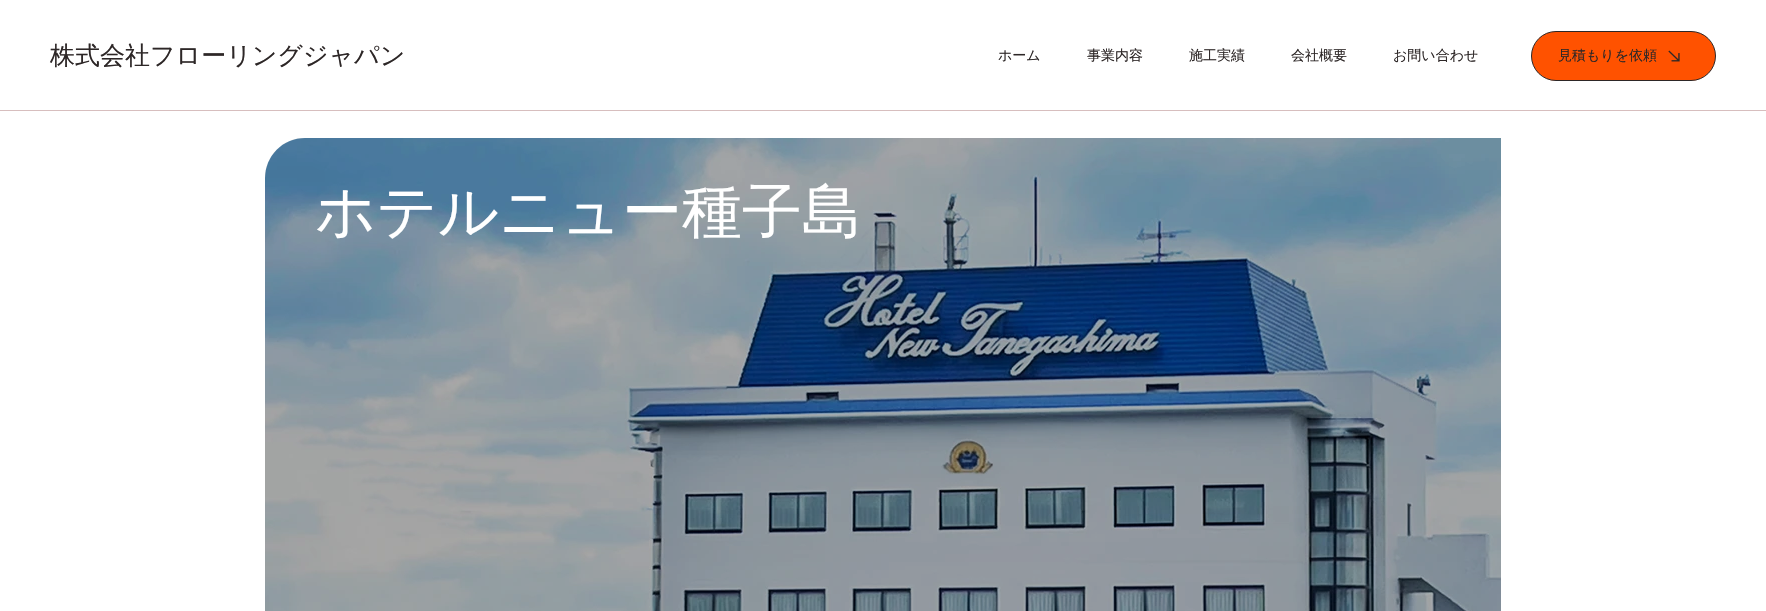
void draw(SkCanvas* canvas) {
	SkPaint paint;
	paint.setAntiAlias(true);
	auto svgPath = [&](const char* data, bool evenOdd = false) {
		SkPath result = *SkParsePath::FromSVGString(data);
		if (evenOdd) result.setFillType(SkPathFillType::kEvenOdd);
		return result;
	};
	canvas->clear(0xffffffff);
	SkFont f1(fontMgr->matchFamilyStyle("WenQuanYi Zen Hei", SkFontStyle(500, SkFontStyle::kNormal_Width, SkFontStyle::kUpright_Slant)), 25);
	f1.setSubpixel(true);
	paint.setColor(0xff2d2727);
	canvas->drawString("株式会社フローリングジャパン", 50, 64, f1, paint);
	SkFont f2(fontMgr->matchFamilyStyle("WenQuanYi Zen Hei", SkFontStyle(500, SkFontStyle::kNormal_Width, SkFontStyle::kUpright_Slant)), 14);
	f2.setSubpixel(true);
	canvas->drawString("ホーム", 998, 60, f2, paint);
	canvas->drawString("事業内容", 1087, 60, f2, paint);
	canvas->drawString("施工実績", 1189, 60, f2, paint);
	canvas->drawString("会社概要", 1291, 60, f2, paint);
	canvas->drawString("お問い合わせ", 1393, 60, f2, paint);
	paint.setColor(0xffff5200);
	canvas->drawRoundRect(SkRect::MakeXYWH(1531.5, 31.5, 184, 49), 24.5, 24.5, paint);
	paint.setStroke(true);
	paint.setStrokeWidth(1);
	paint.setColor(0xff2d2727);
	canvas->drawRoundRect(SkRect::MakeXYWH(1531.5, 31.5, 184, 49), 24.5, 24.5, paint);
	paint.setStroke(false);
	canvas->drawString("見積もりを依頼", 1558, 60, f2, paint);
	canvas->drawImageRect(SkImages::DeferredFromEncodedData(SkData::MakeFromFileName("img1.png")), SkRect::MakeXYWH(1668, 50, 12, 12), SkSamplingOptions());
	paint.setColor(0xffd7bebe);
	canvas->drawRect(SkRect::MakeXYWH(0, 110, 1766, 1), paint);
	paint.setColor(0xffeeeeee);
	canvas->drawPath(svgPath("M305 138H1501V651H305C283 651 265 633 265 611V178C265 156 283 138 305 138Z"), paint);
	canvas->drawImageRect(SkImages::DeferredFromEncodedData(SkData::MakeFromFileName("img2.png")), SkRect::MakeXYWH(265, 138, 1236, 473), SkSamplingOptions());
	paint.setColor(0x4d000000);
	canvas->drawPath(svgPath("M305 138H1501V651H305C283 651 265 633 265 611V178C265 156 283 138 305 138Z"), paint);
	SkFont f3(fontMgr->matchFamilyStyle("WenQuanYi Zen Hei", SkFontStyle(500, SkFontStyle::kNormal_Width, SkFontStyle::kUpright_Slant)), 60);
	f3.setSubpixel(true);
	paint.setColor(0xffffffff);
	canvas->drawString("ホテルニュー種子島", 315, 232, f3, paint);
}
